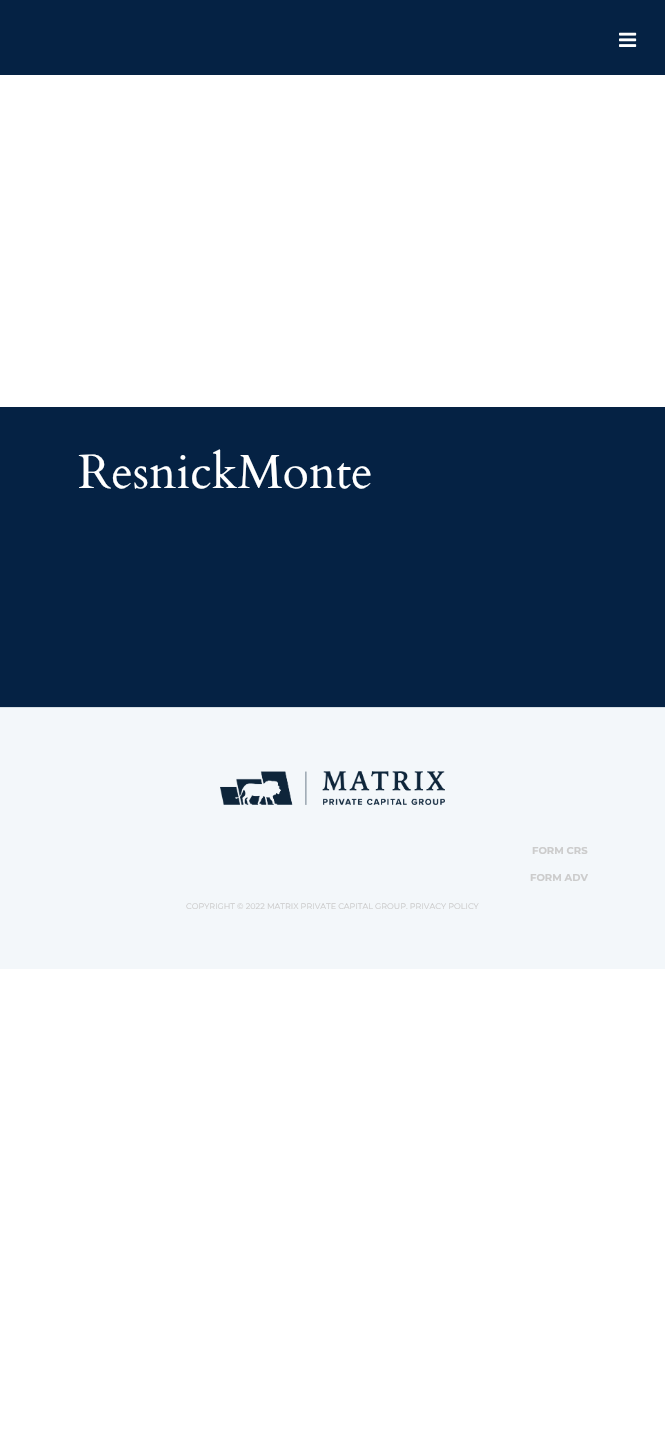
void draw(SkCanvas* canvas) {
	SkPaint paint;
	paint.setAntiAlias(true);
	canvas->clear(0xffffffff);
	paint.setColor(0xff052244);
	canvas->drawRect(SkRect::MakeXYWH(0, 0, 665, 75), paint);
	canvas->drawImageRect(SkImages::DeferredFromEncodedData(SkData::MakeFromFileName("img1.png")), SkRect::MakeXYWH(619, 32, 18, 15), SkSamplingOptions());
	canvas->drawRect(SkRect::MakeXYWH(0, 407, 665, 300), paint);
	SkFont f1(fontMgr->matchFamilyStyle("Cardo", SkFontStyle::Normal()), 48);
	f1.setSubpixel(true);
	paint.setColor(0xffffffff);
	canvas->drawString("ResnickMonte", 78, 488, f1, paint);
	paint.setColor(0xfff3f7fa);
	canvas->drawRect(SkRect::MakeXYWH(0, 708, 665, 261), paint);
	paint.setColor(0xffd7dfe5);
	canvas->drawRect(SkRect::MakeXYWH(0, 707, 665, 1), paint);
	canvas->drawImageRect(SkImages::DeferredFromEncodedData(SkData::MakeFromFileName("img2.png")), SkRect::MakeXYWH(220, 771, 225, 34), SkSamplingOptions());
	SkFont f2(fontMgr->matchFamilyStyle("Montserrat", SkFontStyle::Bold()), 10);
	f2.setSubpixel(true);
	paint.setColor(0xffcccccc);
	canvas->drawString("FORM CRS", 532, 854, f2, paint);
	canvas->drawString("FORM ADV", 530, 881, f2, paint);
	SkFont f3(fontMgr->matchFamilyStyle("Montserrat", SkFontStyle::Normal()), 8.05);
	f3.setSubpixel(true);
	canvas->drawString("COPYRIGHT © 2022 MATRIX PRIVATE CAPITAL GROUP. PRIVACY POLICY", 186, 909, f3, paint);
}
